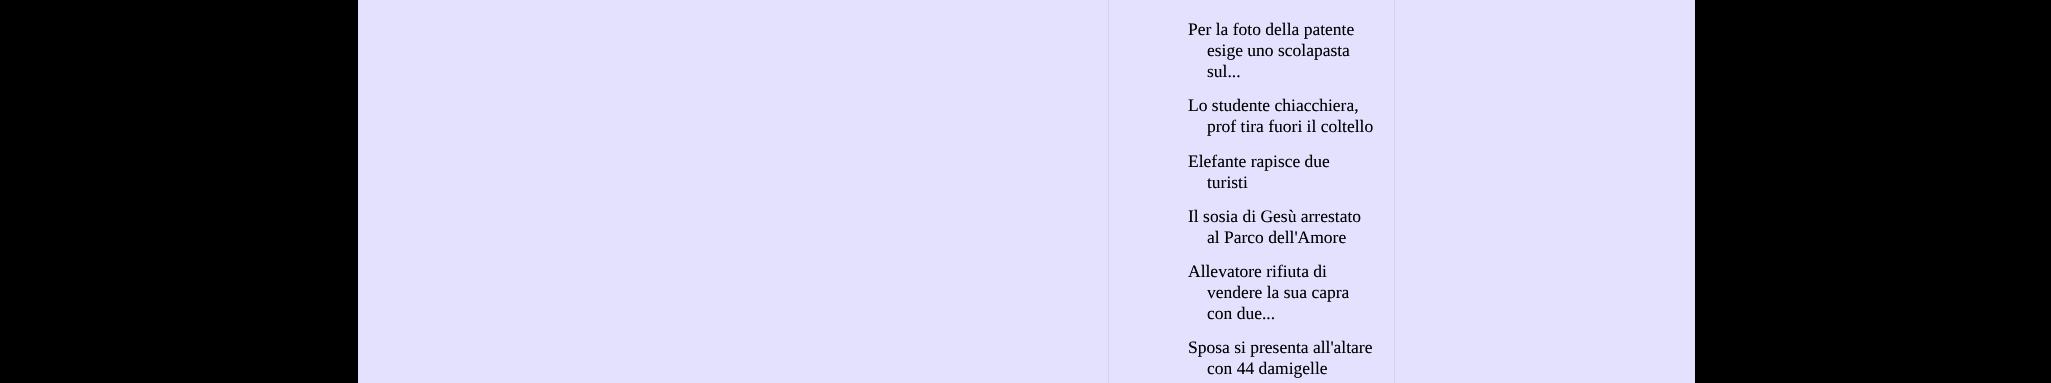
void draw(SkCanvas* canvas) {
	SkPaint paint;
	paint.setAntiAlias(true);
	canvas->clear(0xff000000);
	paint.setColor(0xffe4e1ff);
	canvas->drawRect(SkRect::MakeXYWH(358, 0, 1337, 383), paint);
	paint.setColor(0xffd3d4e9);
	canvas->drawRect(SkRect::MakeXYWH(1108, 0, 1, 383), paint);
	SkFont f1(fontMgr->matchFamilyStyle("Liberation Serif", SkFontStyle::Normal()), 17.5);
	f1.setSubpixel(true);
	paint.setColor(0xff000000);
	canvas->drawString("Per la foto della patente", 1188, 35, f1, paint);
	canvas->drawString("esige uno scolapasta", 1207, 56, f1, paint);
	canvas->drawString("sul...", 1207, 77, f1, paint);
	canvas->drawString("Lo studente chiacchiera,", 1188, 111, f1, paint);
	canvas->drawString("prof tira fuori il coltello", 1207, 132, f1, paint);
	canvas->drawString("Elefante rapisce due", 1188, 167, f1, paint);
	canvas->drawString("turisti", 1207, 188, f1, paint);
	canvas->drawString("Il sosia di Gesù arrestato", 1188, 222, f1, paint);
	canvas->drawString("al Parco dell'Amore", 1207, 243, f1, paint);
	canvas->drawString("Allevatore rifiuta di", 1188, 277, f1, paint);
	canvas->drawString("vendere la sua capra", 1207, 298, f1, paint);
	canvas->drawString("con due...", 1207, 319, f1, paint);
	canvas->drawString("Sposa si presenta all'altare", 1188, 353, f1, paint);
	canvas->drawString("con 44 damigelle", 1207, 374, f1, paint);
	paint.setColor(0xffd3d4e9);
	canvas->drawRect(SkRect::MakeXYWH(1394, 0, 1, 383), paint);
}
